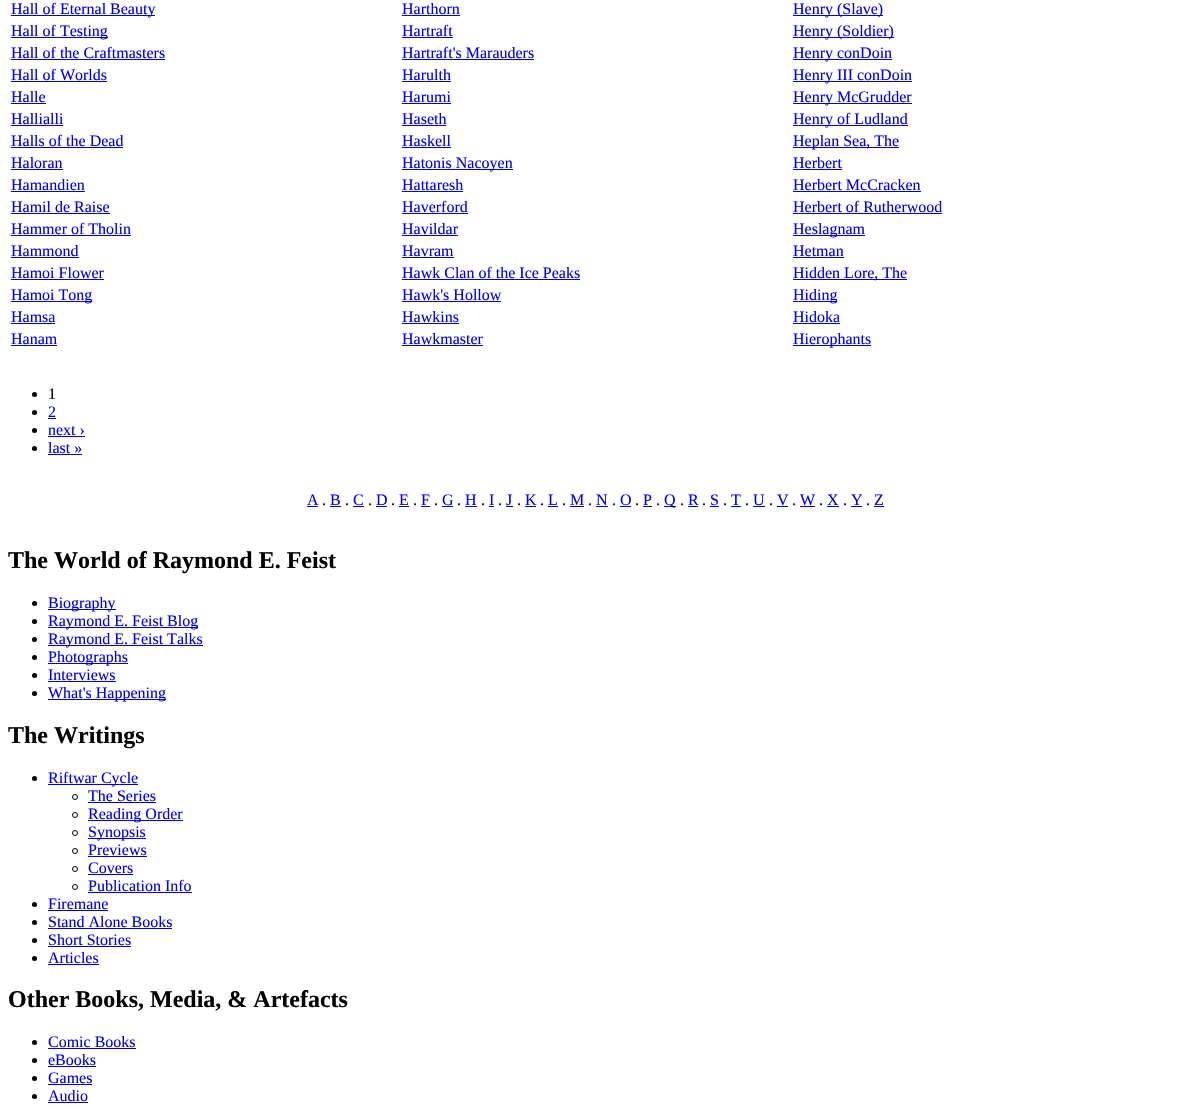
void draw(SkCanvas* canvas) {
	SkPaint paint;
	paint.setAntiAlias(true);
	canvas->clear(0xffffffff);
	paint.setColor(0xff0000ee);
	canvas->drawRect(SkRect::MakeXYWH(11, 15, 144, 1), paint);
	SkFont f1(fontMgr->matchFamilyStyle("Liberation Serif", SkFontStyle::Normal()), 16);
	f1.setSubpixel(true);
	canvas->drawString("Hall of Eternal Beauty", 11, 14, f1, paint);
	canvas->drawString("Harthorn", 402, 14, f1, paint);
	canvas->drawRect(SkRect::MakeXYWH(402, 15, 58, 1), paint);
	canvas->drawRect(SkRect::MakeXYWH(793, 15, 90, 1), paint);
	canvas->drawString("Henry (Slave)", 793, 14, f1, paint);
	canvas->drawRect(SkRect::MakeXYWH(11, 37, 97, 1), paint);
	canvas->drawString("Hall of Testing", 11, 36, f1, paint);
	canvas->drawString("Hartraft", 402, 36, f1, paint);
	canvas->drawRect(SkRect::MakeXYWH(402, 37, 51, 1), paint);
	canvas->drawRect(SkRect::MakeXYWH(793, 37, 101, 1), paint);
	canvas->drawString("Henry (Soldier)", 793, 36, f1, paint);
	canvas->drawString("Hall of the Craftmasters", 11, 58, f1, paint);
	canvas->drawRect(SkRect::MakeXYWH(11, 59, 154, 1), paint);
	canvas->drawString("Hartraft's Marauders", 402, 58, f1, paint);
	canvas->drawRect(SkRect::MakeXYWH(402, 59, 132, 1), paint);
	canvas->drawRect(SkRect::MakeXYWH(793, 59, 99, 1), paint);
	canvas->drawString("Henry conDoin", 793, 58, f1, paint);
	canvas->drawString("Hall of Worlds", 11, 80, f1, paint);
	canvas->drawRect(SkRect::MakeXYWH(11, 81, 96, 1), paint);
	canvas->drawString("Harulth", 402, 80, f1, paint);
	canvas->drawRect(SkRect::MakeXYWH(402, 81, 49, 1), paint);
	canvas->drawRect(SkRect::MakeXYWH(793, 81, 119, 1), paint);
	canvas->drawString("Henry III conDoin", 793, 80, f1, paint);
	canvas->drawString("Halle", 11, 102, f1, paint);
	canvas->drawRect(SkRect::MakeXYWH(11, 103, 35, 1), paint);
	canvas->drawString("Harumi", 402, 102, f1, paint);
	canvas->drawRect(SkRect::MakeXYWH(402, 103, 49, 1), paint);
	canvas->drawRect(SkRect::MakeXYWH(793, 103, 119, 1), paint);
	canvas->drawString("Henry McGrudder", 793, 102, f1, paint);
	canvas->drawString("Hallialli", 11, 124, f1, paint);
	canvas->drawRect(SkRect::MakeXYWH(11, 125, 52, 1), paint);
	canvas->drawString("Haseth", 402, 124, f1, paint);
	canvas->drawRect(SkRect::MakeXYWH(402, 125, 44, 1), paint);
	canvas->drawRect(SkRect::MakeXYWH(793, 125, 115, 1), paint);
	canvas->drawString("Henry of Ludland", 793, 124, f1, paint);
	canvas->drawString("Halls of the Dead", 11, 146, f1, paint);
	canvas->drawRect(SkRect::MakeXYWH(11, 147, 112, 1), paint);
	canvas->drawString("Haskell", 402, 146, f1, paint);
	canvas->drawRect(SkRect::MakeXYWH(402, 147, 49, 1), paint);
	canvas->drawRect(SkRect::MakeXYWH(793, 147, 106, 1), paint);
	canvas->drawString("Heplan Sea, The", 793, 146, f1, paint);
	canvas->drawString("Haloran", 11, 168, f1, paint);
	canvas->drawRect(SkRect::MakeXYWH(11, 169, 52, 1), paint);
	canvas->drawRect(SkRect::MakeXYWH(402, 169, 111, 1), paint);
	canvas->drawString("Hatonis Nacoyen", 402, 168, f1, paint);
	canvas->drawString("Herbert", 793, 168, f1, paint);
	canvas->drawRect(SkRect::MakeXYWH(793, 169, 49, 1), paint);
	canvas->drawString("Hamandien", 11, 190, f1, paint);
	canvas->drawRect(SkRect::MakeXYWH(11, 191, 74, 1), paint);
	canvas->drawString("Hattaresh", 402, 190, f1, paint);
	canvas->drawRect(SkRect::MakeXYWH(402, 191, 61, 1), paint);
	canvas->drawString("Herbert McCracken", 793, 190, f1, paint);
	canvas->drawRect(SkRect::MakeXYWH(793, 191, 128, 1), paint);
	canvas->drawString("Hamil de Raise", 11, 212, f1, paint);
	canvas->drawRect(SkRect::MakeXYWH(11, 213, 99, 1), paint);
	canvas->drawString("Haverford", 402, 212, f1, paint);
	canvas->drawRect(SkRect::MakeXYWH(402, 213, 66, 1), paint);
	canvas->drawString("Herbert of Rutherwood", 793, 212, f1, paint);
	canvas->drawRect(SkRect::MakeXYWH(793, 213, 149, 1), paint);
	canvas->drawString("Hammer of Tholin", 11, 234, f1, paint);
	canvas->drawRect(SkRect::MakeXYWH(11, 235, 120, 1), paint);
	canvas->drawString("Havildar", 402, 234, f1, paint);
	canvas->drawRect(SkRect::MakeXYWH(402, 235, 56, 1), paint);
	canvas->drawRect(SkRect::MakeXYWH(793, 235, 72, 1), paint);
	canvas->drawString("Heslagnam", 793, 234, f1, paint);
	canvas->drawString("Hammond", 11, 256, f1, paint);
	canvas->drawRect(SkRect::MakeXYWH(11, 257, 68, 1), paint);
	canvas->drawString("Havram", 402, 256, f1, paint);
	canvas->drawRect(SkRect::MakeXYWH(402, 257, 52, 1), paint);
	canvas->drawString("Hetman", 793, 256, f1, paint);
	canvas->drawRect(SkRect::MakeXYWH(793, 257, 51, 1), paint);
	canvas->drawString("Hamoi Flower", 11, 278, f1, paint);
	canvas->drawRect(SkRect::MakeXYWH(11, 279, 93, 1), paint);
	canvas->drawString("Hawk Clan of the Ice Peaks", 402, 278, f1, paint);
	canvas->drawRect(SkRect::MakeXYWH(402, 279, 178, 1), paint);
	canvas->drawRect(SkRect::MakeXYWH(793, 279, 114, 1), paint);
	canvas->drawString("Hidden Lore, The", 793, 278, f1, paint);
	canvas->drawRect(SkRect::MakeXYWH(11, 301, 81, 1), paint);
	canvas->drawString("Hamoi Tong", 11, 300, f1, paint);
	canvas->drawString("Hawk's Hollow", 402, 300, f1, paint);
	canvas->drawRect(SkRect::MakeXYWH(402, 301, 99, 1), paint);
	canvas->drawRect(SkRect::MakeXYWH(793, 301, 44, 1), paint);
	canvas->drawString("Hiding", 793, 300, f1, paint);
	canvas->drawString("Hamsa", 11, 322, f1, paint);
	canvas->drawRect(SkRect::MakeXYWH(11, 323, 44, 1), paint);
	canvas->drawString("Hawkins", 402, 322, f1, paint);
	canvas->drawRect(SkRect::MakeXYWH(402, 323, 57, 1), paint);
	canvas->drawString("Hidoka", 793, 322, f1, paint);
	canvas->drawRect(SkRect::MakeXYWH(793, 323, 47, 1), paint);
	canvas->drawString("Hanam", 11, 344, f1, paint);
	canvas->drawRect(SkRect::MakeXYWH(11, 345, 46, 1), paint);
	canvas->drawString("Hawkmaster", 402, 344, f1, paint);
	canvas->drawRect(SkRect::MakeXYWH(402, 345, 81, 1), paint);
	canvas->drawRect(SkRect::MakeXYWH(793, 345, 78, 1), paint);
	canvas->drawString("Hierophants", 793, 344, f1, paint);
	paint.setColor(0xff000000);
	canvas->drawCircle(34.5, 394.5, 2.5, paint);
	canvas->drawString("1", 48, 399, f1, paint);
	canvas->drawCircle(34.5, 412.5, 2.5, paint);
	paint.setColor(0xff0000ee);
	canvas->drawString("2", 48, 417, f1, paint);
	canvas->drawRect(SkRect::MakeXYWH(48, 418, 8, 1), paint);
	paint.setColor(0xff000000);
	canvas->drawCircle(34.5, 430.5, 2.5, paint);
	paint.setColor(0xff0000ee);
	canvas->drawString("next ›", 48, 435, f1, paint);
	canvas->drawRect(SkRect::MakeXYWH(48, 436, 37, 1), paint);
	paint.setColor(0xff000000);
	canvas->drawCircle(34.5, 448.5, 2.5, paint);
	paint.setColor(0xff0000ee);
	canvas->drawString("last »", 48, 453, f1, paint);
	canvas->drawRect(SkRect::MakeXYWH(48, 454, 34, 1), paint);
	canvas->drawString("A", 307, 505, f1, paint);
	canvas->drawRect(SkRect::MakeXYWH(307, 506, 11, 1), paint);
	paint.setColor(0xff000000);
	canvas->drawString(".", 322, 505, f1, paint);
	paint.setColor(0xff0000ee);
	canvas->drawRect(SkRect::MakeXYWH(330, 506, 11, 1), paint);
	canvas->drawString("B", 330, 505, f1, paint);
	paint.setColor(0xff000000);
	canvas->drawString(".", 345, 505, f1, paint);
	paint.setColor(0xff0000ee);
	canvas->drawRect(SkRect::MakeXYWH(353, 506, 11, 1), paint);
	canvas->drawString("C", 353, 505, f1, paint);
	paint.setColor(0xff000000);
	canvas->drawString(".", 368, 505, f1, paint);
	paint.setColor(0xff0000ee);
	canvas->drawRect(SkRect::MakeXYWH(376, 506, 11, 1), paint);
	canvas->drawString("D", 376, 505, f1, paint);
	paint.setColor(0xff000000);
	canvas->drawString(".", 391, 505, f1, paint);
	paint.setColor(0xff0000ee);
	canvas->drawRect(SkRect::MakeXYWH(399, 506, 10, 1), paint);
	canvas->drawString("E", 399, 505, f1, paint);
	paint.setColor(0xff000000);
	canvas->drawString(".", 413, 505, f1, paint);
	paint.setColor(0xff0000ee);
	canvas->drawRect(SkRect::MakeXYWH(421, 506, 9, 1), paint);
	canvas->drawString("F", 421, 505, f1, paint);
	paint.setColor(0xff000000);
	canvas->drawString(".", 434, 505, f1, paint);
	paint.setColor(0xff0000ee);
	canvas->drawRect(SkRect::MakeXYWH(442, 506, 11, 1), paint);
	canvas->drawString("G", 442, 505, f1, paint);
	paint.setColor(0xff000000);
	canvas->drawString(".", 457, 505, f1, paint);
	paint.setColor(0xff0000ee);
	canvas->drawRect(SkRect::MakeXYWH(465, 506, 12, 1), paint);
	canvas->drawString("H", 465, 505, f1, paint);
	paint.setColor(0xff000000);
	canvas->drawString(".", 481, 505, f1, paint);
	paint.setColor(0xff0000ee);
	canvas->drawRect(SkRect::MakeXYWH(489, 506, 5, 1), paint);
	canvas->drawString("I", 489, 505, f1, paint);
	paint.setColor(0xff000000);
	canvas->drawString(".", 498, 505, f1, paint);
	paint.setColor(0xff0000ee);
	canvas->drawRect(SkRect::MakeXYWH(506, 506, 7, 1), paint);
	canvas->drawString("J", 506, 505, f1, paint);
	paint.setColor(0xff000000);
	canvas->drawString(".", 517, 505, f1, paint);
	paint.setColor(0xff0000ee);
	canvas->drawRect(SkRect::MakeXYWH(525, 506, 11, 1), paint);
	canvas->drawString("K", 525, 505, f1, paint);
	paint.setColor(0xff000000);
	canvas->drawString(".", 540, 505, f1, paint);
	paint.setColor(0xff0000ee);
	canvas->drawRect(SkRect::MakeXYWH(548, 506, 10, 1), paint);
	canvas->drawString("L", 548, 505, f1, paint);
	paint.setColor(0xff000000);
	canvas->drawString(".", 562, 505, f1, paint);
	paint.setColor(0xff0000ee);
	canvas->drawRect(SkRect::MakeXYWH(570, 506, 14, 1), paint);
	canvas->drawString("M", 570, 505, f1, paint);
	paint.setColor(0xff000000);
	canvas->drawString(".", 588, 505, f1, paint);
	paint.setColor(0xff0000ee);
	canvas->drawRect(SkRect::MakeXYWH(596, 506, 12, 1), paint);
	canvas->drawString("N", 596, 505, f1, paint);
	paint.setColor(0xff000000);
	canvas->drawString(".", 612, 505, f1, paint);
	paint.setColor(0xff0000ee);
	canvas->drawRect(SkRect::MakeXYWH(620, 506, 11, 1), paint);
	canvas->drawString("O", 620, 505, f1, paint);
	paint.setColor(0xff000000);
	canvas->drawString(".", 635, 505, f1, paint);
	paint.setColor(0xff0000ee);
	canvas->drawRect(SkRect::MakeXYWH(643, 506, 9, 1), paint);
	canvas->drawString("P", 643, 505, f1, paint);
	paint.setColor(0xff000000);
	canvas->drawString(".", 656, 505, f1, paint);
	paint.setColor(0xff0000ee);
	canvas->drawRect(SkRect::MakeXYWH(664, 506, 12, 1), paint);
	canvas->drawString("Q", 664, 505, f1, paint);
	paint.setColor(0xff000000);
	canvas->drawString(".", 680, 505, f1, paint);
	paint.setColor(0xff0000ee);
	canvas->drawRect(SkRect::MakeXYWH(688, 506, 10, 1), paint);
	canvas->drawString("R", 688, 505, f1, paint);
	paint.setColor(0xff000000);
	canvas->drawString(".", 702, 505, f1, paint);
	paint.setColor(0xff0000ee);
	canvas->drawRect(SkRect::MakeXYWH(710, 506, 9, 1), paint);
	canvas->drawString("S", 710, 505, f1, paint);
	paint.setColor(0xff000000);
	canvas->drawString(".", 723, 505, f1, paint);
	paint.setColor(0xff0000ee);
	canvas->drawRect(SkRect::MakeXYWH(731, 506, 10, 1), paint);
	canvas->drawString("T", 731, 505, f1, paint);
	paint.setColor(0xff000000);
	canvas->drawString(".", 745, 505, f1, paint);
	paint.setColor(0xff0000ee);
	canvas->drawRect(SkRect::MakeXYWH(753, 506, 12, 1), paint);
	canvas->drawString("U", 753, 505, f1, paint);
	paint.setColor(0xff000000);
	canvas->drawString(".", 769, 505, f1, paint);
	paint.setColor(0xff0000ee);
	canvas->drawRect(SkRect::MakeXYWH(777, 506, 11, 1), paint);
	canvas->drawString("V", 777, 505, f1, paint);
	paint.setColor(0xff000000);
	canvas->drawString(".", 792, 505, f1, paint);
	paint.setColor(0xff0000ee);
	canvas->drawRect(SkRect::MakeXYWH(800, 506, 15, 1), paint);
	canvas->drawString("W", 800, 505, f1, paint);
	paint.setColor(0xff000000);
	canvas->drawString(".", 819, 505, f1, paint);
	paint.setColor(0xff0000ee);
	canvas->drawRect(SkRect::MakeXYWH(827, 506, 12, 1), paint);
	canvas->drawString("X", 827, 505, f1, paint);
	paint.setColor(0xff000000);
	canvas->drawString(".", 843, 505, f1, paint);
	paint.setColor(0xff0000ee);
	canvas->drawRect(SkRect::MakeXYWH(851, 506, 11, 1), paint);
	canvas->drawString("Y", 851, 505, f1, paint);
	paint.setColor(0xff000000);
	canvas->drawString(".", 866, 505, f1, paint);
	paint.setColor(0xff0000ee);
	canvas->drawRect(SkRect::MakeXYWH(874, 506, 10, 1), paint);
	canvas->drawString("Z", 874, 505, f1, paint);
	SkFont f2(fontMgr->matchFamilyStyle("Liberation Serif", SkFontStyle::Bold()), 24);
	f2.setSubpixel(true);
	paint.setColor(0xff000000);
	canvas->drawString("The World of Raymond E. Feist", 8, 568, f2, paint);
	canvas->drawCircle(34.5, 603.5, 2.5, paint);
	paint.setColor(0xff0000ee);
	canvas->drawRect(SkRect::MakeXYWH(48, 609, 68, 1), paint);
	canvas->drawString("Biography", 48, 608, f1, paint);
	paint.setColor(0xff000000);
	canvas->drawCircle(34.5, 621.5, 2.5, paint);
	paint.setColor(0xff0000ee);
	canvas->drawRect(SkRect::MakeXYWH(48, 627, 150, 1), paint);
	canvas->drawString("Raymond E. Feist Blog", 48, 626, f1, paint);
	paint.setColor(0xff000000);
	canvas->drawCircle(34.5, 639.5, 2.5, paint);
	paint.setColor(0xff0000ee);
	canvas->drawRect(SkRect::MakeXYWH(48, 645, 155, 1), paint);
	canvas->drawString("Raymond E. Feist Talks", 48, 644, f1, paint);
	paint.setColor(0xff000000);
	canvas->drawCircle(34.5, 657.5, 2.5, paint);
	paint.setColor(0xff0000ee);
	canvas->drawRect(SkRect::MakeXYWH(48, 663, 80, 1), paint);
	canvas->drawString("Photographs", 48, 662, f1, paint);
	paint.setColor(0xff000000);
	canvas->drawCircle(34.5, 675.5, 2.5, paint);
	paint.setColor(0xff0000ee);
	canvas->drawString("Interviews", 48, 680, f1, paint);
	canvas->drawRect(SkRect::MakeXYWH(48, 681, 68, 1), paint);
	paint.setColor(0xff000000);
	canvas->drawCircle(34.5, 693.5, 2.5, paint);
	paint.setColor(0xff0000ee);
	canvas->drawRect(SkRect::MakeXYWH(48, 699, 118, 1), paint);
	canvas->drawString("What's Happening", 48, 698, f1, paint);
	paint.setColor(0xff000000);
	canvas->drawString("The Writings", 8, 743, f2, paint);
	canvas->drawCircle(34.5, 778.5, 2.5, paint);
	paint.setColor(0xff0000ee);
	canvas->drawRect(SkRect::MakeXYWH(48, 784, 90, 1), paint);
	canvas->drawString("Riftwar Cycle", 48, 783, f1, paint);
	paint.setStroke(true);
	paint.setStrokeWidth(1);
	paint.setColor(0xff000000);
	canvas->drawCircle(75, 797, 2.5, paint);
	paint.setStroke(false);
	paint.setColor(0xff0000ee);
	canvas->drawString("The Series", 88, 801, f1, paint);
	canvas->drawRect(SkRect::MakeXYWH(88, 802, 68, 1), paint);
	paint.setStroke(true);
	paint.setColor(0xff000000);
	canvas->drawCircle(75, 815, 2.5, paint);
	paint.setStroke(false);
	paint.setColor(0xff0000ee);
	canvas->drawRect(SkRect::MakeXYWH(88, 820, 95, 1), paint);
	canvas->drawString("Reading Order", 88, 819, f1, paint);
	paint.setStroke(true);
	paint.setColor(0xff000000);
	canvas->drawCircle(75, 833, 2.5, paint);
	paint.setStroke(false);
	paint.setColor(0xff0000ee);
	canvas->drawRect(SkRect::MakeXYWH(88, 838, 58, 1), paint);
	canvas->drawString("Synopsis", 88, 837, f1, paint);
	paint.setStroke(true);
	paint.setColor(0xff000000);
	canvas->drawCircle(75, 851, 2.5, paint);
	paint.setStroke(false);
	paint.setColor(0xff0000ee);
	canvas->drawString("Previews", 88, 855, f1, paint);
	canvas->drawRect(SkRect::MakeXYWH(88, 856, 59, 1), paint);
	paint.setStroke(true);
	paint.setColor(0xff000000);
	canvas->drawCircle(75, 869, 2.5, paint);
	paint.setStroke(false);
	paint.setColor(0xff0000ee);
	canvas->drawString("Covers", 88, 873, f1, paint);
	canvas->drawRect(SkRect::MakeXYWH(88, 874, 45, 1), paint);
	paint.setStroke(true);
	paint.setColor(0xff000000);
	canvas->drawCircle(75, 887, 2.5, paint);
	paint.setStroke(false);
	paint.setColor(0xff0000ee);
	canvas->drawString("Publication Info", 88, 891, f1, paint);
	canvas->drawRect(SkRect::MakeXYWH(88, 892, 104, 1), paint);
	paint.setColor(0xff000000);
	canvas->drawCircle(34.5, 904.5, 2.5, paint);
	paint.setColor(0xff0000ee);
	canvas->drawString("Firemane", 48, 909, f1, paint);
	canvas->drawRect(SkRect::MakeXYWH(48, 910, 60, 1), paint);
	paint.setColor(0xff000000);
	canvas->drawCircle(34.5, 922.5, 2.5, paint);
	paint.setColor(0xff0000ee);
	canvas->drawString("Stand Alone Books", 48, 927, f1, paint);
	canvas->drawRect(SkRect::MakeXYWH(48, 928, 124, 1), paint);
	paint.setColor(0xff000000);
	canvas->drawCircle(34.5, 940.5, 2.5, paint);
	paint.setColor(0xff0000ee);
	canvas->drawString("Short Stories", 48, 945, f1, paint);
	canvas->drawRect(SkRect::MakeXYWH(48, 946, 83, 1), paint);
	paint.setColor(0xff000000);
	canvas->drawCircle(34.5, 958.5, 2.5, paint);
	paint.setColor(0xff0000ee);
	canvas->drawString("Articles", 48, 963, f1, paint);
	canvas->drawRect(SkRect::MakeXYWH(48, 964, 51, 1), paint);
	paint.setColor(0xff000000);
	canvas->drawString("Other Books, Media, & Artefacts", 8, 1007, f2, paint);
	canvas->drawCircle(34.5, 1042.5, 2.5, paint);
	paint.setColor(0xff0000ee);
	canvas->drawString("Comic Books", 48, 1047, f1, paint);
	canvas->drawRect(SkRect::MakeXYWH(48, 1048, 88, 1), paint);
	paint.setColor(0xff000000);
	canvas->drawCircle(34.5, 1060.5, 2.5, paint);
	paint.setColor(0xff0000ee);
	canvas->drawString("eBooks", 48, 1065, f1, paint);
	canvas->drawRect(SkRect::MakeXYWH(48, 1066, 48, 1), paint);
	paint.setColor(0xff000000);
	canvas->drawCircle(34.5, 1078.5, 2.5, paint);
	paint.setColor(0xff0000ee);
	canvas->drawString("Games", 48, 1083, f1, paint);
	canvas->drawRect(SkRect::MakeXYWH(48, 1084, 44, 1), paint);
	paint.setColor(0xff000000);
	canvas->drawCircle(34.5, 1096.5, 2.5, paint);
	paint.setColor(0xff0000ee);
	canvas->drawString("Audio", 48, 1101, f1, paint);
	canvas->drawRect(SkRect::MakeXYWH(48, 1102, 40, 1), paint);
}
